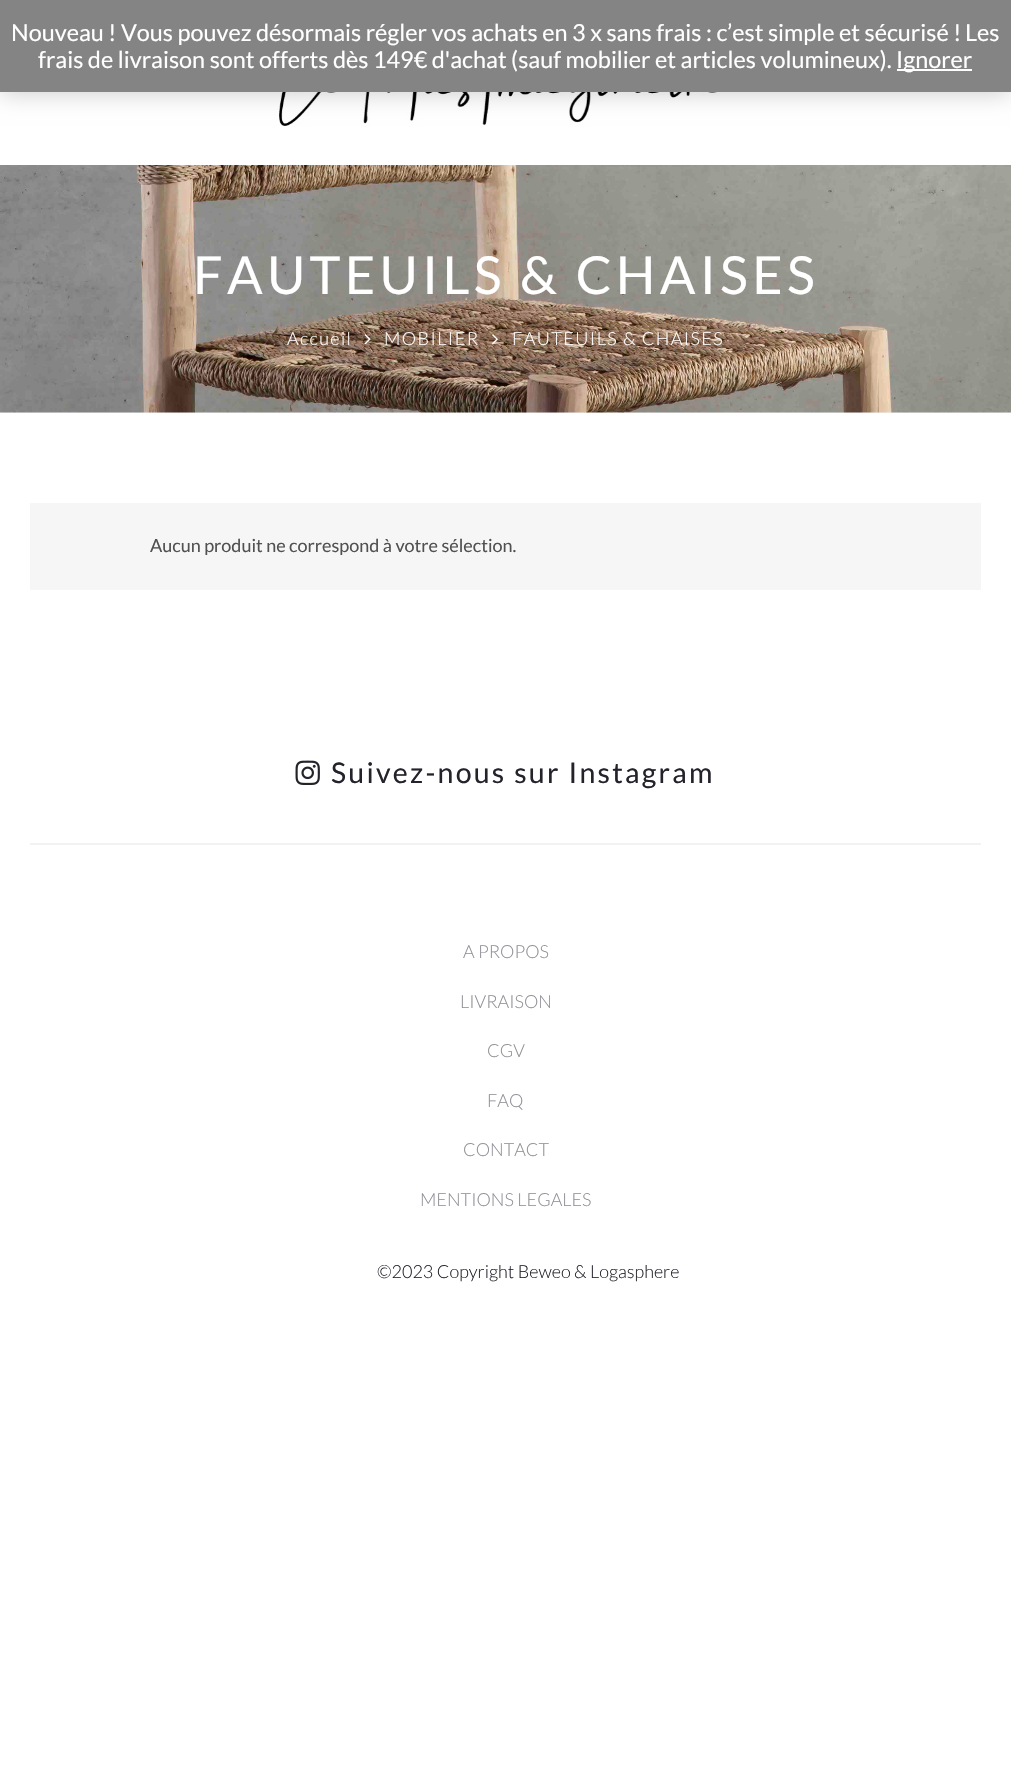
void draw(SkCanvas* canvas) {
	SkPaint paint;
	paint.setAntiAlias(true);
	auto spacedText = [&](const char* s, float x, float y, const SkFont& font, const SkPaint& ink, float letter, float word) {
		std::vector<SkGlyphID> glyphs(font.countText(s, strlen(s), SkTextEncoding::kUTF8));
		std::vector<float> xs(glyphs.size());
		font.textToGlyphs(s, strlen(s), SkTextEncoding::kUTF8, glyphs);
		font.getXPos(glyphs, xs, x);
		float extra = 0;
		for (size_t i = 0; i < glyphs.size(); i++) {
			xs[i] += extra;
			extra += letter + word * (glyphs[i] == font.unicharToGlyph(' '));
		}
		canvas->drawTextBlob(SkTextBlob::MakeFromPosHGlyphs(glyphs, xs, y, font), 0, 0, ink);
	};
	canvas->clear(0xffffffff);
	canvas->drawImageRect(SkImages::DeferredFromEncodedData(SkData::MakeFromFileName("img1.png")), SkRect::MakeXYWH(279, 92, 453, 34), SkSamplingOptions());
	paint.setColor(0x33000000);
	paint.setMaskFilter(SkMaskFilter::MakeBlur(kNormal_SkBlurStyle, 11.5));
	canvas->drawRect(SkRect::MakeXYWH(0, 2, 1011, 91), paint);
	paint.setMaskFilter(nullptr);
	paint.setColor(0xff848484);
	canvas->drawRect(SkRect::MakeXYWH(0, 0, 1011, 92), paint);
	SkFont f1(fontMgr->matchFamilyStyle("Lato", SkFontStyle::Normal()), 23.4);
	f1.setSubpixel(true);
	paint.setColor(0xffffffff);
	canvas->drawString("Nouveau ! Vous pouvez désormais régler vos achats en 3 x sans frais : c’est simple et sécurisé !", 11, 41, f1, paint);
	canvas->drawString("Les", 965, 41, f1, paint);
	canvas->drawString("frais de livraison sont offerts dès 149€ d'achat (sauf mobilier et articles volumineux).", 38, 68, f1, paint);
	canvas->drawRect(SkRect::MakeXYWH(897, 69, 75, 2), paint);
	canvas->drawString("Ignorer", 896, 68, f1, paint);
	paint.setColor(0xfff1f2f4);
	canvas->drawRect(SkRect::MakeXYWH(0, 412, 1011, 1), paint);
	canvas->drawImageRect(SkImages::DeferredFromEncodedData(SkData::MakeFromFileName("img2.png")), SkRect::MakeXYWH(0, 165, 1011, 248), SkSamplingOptions());
	SkFont f2(fontMgr->matchFamilyStyle("Lato", SkFontStyle::Normal()), 52.5);
	f2.setSubpixel(true);
	paint.setColor(0xffffffff);
	spacedText("FAUTEUILS & CHAISES", 193, 294, f2, paint, 4.25, 0);
	SkFont f3(fontMgr->matchFamilyStyle("Lato", SkFontStyle(300, SkFontStyle::kNormal_Width, SkFontStyle::kUpright_Slant)), 18);
	f3.setSubpixel(true);
	spacedText("Accueil", 287, 345, f3, paint, 1.4, 0);
	canvas->drawImageRect(SkImages::DeferredFromEncodedData(SkData::MakeFromFileName("img3.png")), SkRect::MakeXYWH(364, 334, 7, 11), SkSamplingOptions());
	spacedText("MOBILIER", 384, 345, f3, paint, 1.4, 0);
	canvas->drawImageRect(SkImages::DeferredFromEncodedData(SkData::MakeFromFileName("img4.png")), SkRect::MakeXYWH(492, 334, 6, 11), SkSamplingOptions());
	spacedText("FAUTEUILS & CHAISES", 512, 345, f3, paint, 1.4, 0);
	paint.setColor(0xfff7f6f7);
	canvas->drawRect(SkRect::MakeXYWH(30, 503, 951, 87), paint);
	SkFont f4(fontMgr->matchFamilyStyle("Lato", SkFontStyle::Normal()), 18);
	f4.setSubpixel(true);
	paint.setColor(0xff515151);
	canvas->drawString("Aucun produit ne correspond à votre sélection.", 150, 552, f4, paint);
	canvas->drawImageRect(SkImages::DeferredFromEncodedData(SkData::MakeFromFileName("img5.png")), SkRect::MakeXYWH(295, 760, 25, 25), SkSamplingOptions());
	SkFont f5(fontMgr->matchFamilyStyle("Lato", SkFontStyle::Normal()), 28.5);
	f5.setSubpixel(true);
	paint.setColor(0xff23232c);
	spacedText("Suivez-nous sur Instagram", 331, 783, f5, paint, 2.25, 0);
	paint.setColor(0xfff1f2f4);
	canvas->drawRect(SkRect::MakeXYWH(30, 843, 951, 2), paint);
	paint.setColor(0xff909097);
	canvas->drawString("A PROPOS", 463, 958, f3, paint);
	canvas->drawString("LIVRAISON", 460, 1008, f3, paint);
	canvas->drawString("CGV", 487, 1057, f3, paint);
	canvas->drawString("FAQ", 487, 1107, f3, paint);
	canvas->drawString("CONTACT", 463, 1156, f3, paint);
	canvas->drawString("MENTIONS LEGALES", 420, 1206, f3, paint);
	paint.setColor(0xff23232c);
	canvas->drawString("©2023 Copyright Beweo & Logasphere", 377, 1278, f3, paint);
}
